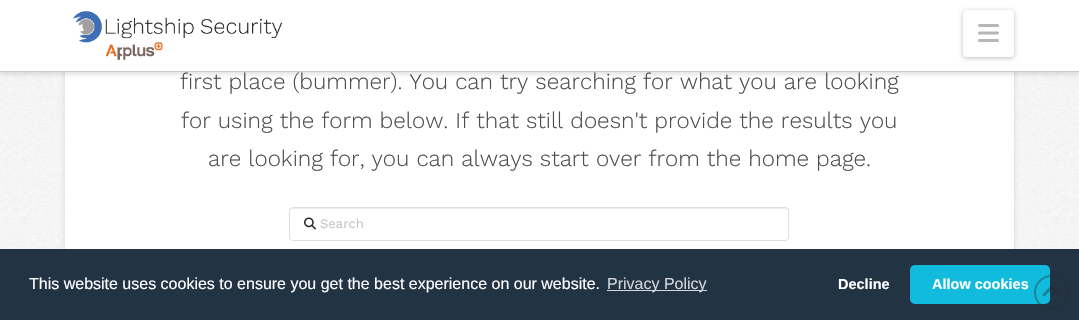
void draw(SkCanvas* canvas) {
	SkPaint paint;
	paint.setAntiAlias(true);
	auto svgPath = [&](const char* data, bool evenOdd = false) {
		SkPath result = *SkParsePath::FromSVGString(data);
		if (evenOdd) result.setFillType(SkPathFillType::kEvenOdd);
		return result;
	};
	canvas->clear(0xffffffff);
	canvas->drawImageRect(SkImages::DeferredFromEncodedData(SkData::MakeFromFileName("img1.png")), SkRect::MakeXYWH(0, 72, 1079, 177), SkSamplingOptions());
	paint.setColor(0x21000000);
	paint.setMaskFilter(SkMaskFilter::MakeBlur(kNormal_SkBlurStyle, 2.5));
	canvas->drawRoundRect(SkRect::MakeXYWH(65, -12, 949, 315), 4, 4, paint);
	paint.setMaskFilter(nullptr);
	paint.setColor(0xffffffff);
	canvas->drawRect(SkRect::MakeXYWH(65, 72, 949, 177), paint);
	paint.setColor(0x21000000);
	paint.setMaskFilter(SkMaskFilter::MakeBlur(kNormal_SkBlurStyle, 2.5));
	canvas->drawRect(SkRect::MakeXYWH(0, 2, 1079, 72), paint);
	paint.setMaskFilter(nullptr);
	paint.setColor(0xffffffff);
	canvas->drawRect(SkRect::MakeXYWH(0, 0, 1079, 71), paint);
	paint.setColor(0xffcccccc);
	canvas->drawRect(SkRect::MakeXYWH(0, 71, 1079, 1), paint);
	canvas->drawImageRect(SkImages::DeferredFromEncodedData(SkData::MakeFromFileName("img2.png")), SkRect::MakeXYWH(73, 11, 210, 49), SkSamplingOptions());
	paint.setColor(0x40000000);
	paint.setMaskFilter(SkMaskFilter::MakeBlur(kNormal_SkBlurStyle, 2.5));
	canvas->drawRoundRect(SkRect::MakeXYWH(963, 11, 51, 47), 4, 4, paint);
	paint.setMaskFilter(nullptr);
	paint.setColor(0xffffffff);
	canvas->drawRoundRect(SkRect::MakeXYWH(963, 10, 51, 47), 4, 4, paint);
	canvas->drawImageRect(SkImages::DeferredFromEncodedData(SkData::MakeFromFileName("img3.png")), SkRect::MakeXYWH(978, 24, 21, 18), SkSamplingOptions());
	SkFont f1(fontMgr->matchFamilyStyle("Work Sans", SkFontStyle(300, SkFontStyle::kNormal_Width, SkFontStyle::kUpright_Slant)), 22.5);
	f1.setSubpixel(true);
	paint.setColor(0xff4d4d4d);
	canvas->drawString("first place (bummer). You can try searching for what you are looking", 180, 89, f1, paint);
	canvas->drawString("for using the form below. If that still doesn't provide the results you", 181, 128, f1, paint);
	canvas->drawString("are looking for, you can always start over from the home page.", 208, 166, f1, paint);
	paint.setColor(0xffececec);
	canvas->drawPath(svgPath("M293 209H785C787 209 788 210 788 212C788 210 787 208 785 208H293C291 208 290 210 290 212C290 210 291 209 293 209Z"), paint);
	paint.setStroke(true);
	paint.setStrokeWidth(1);
	paint.setColor(0xffdddddd);
	canvas->drawRoundRect(SkRect::MakeXYWH(289.5, 207.5, 499, 33), 3.5, 3.5, paint);
	canvas->drawImageRect(SkImages::DeferredFromEncodedData(SkData::MakeFromFileName("img4.png")), SkRect::MakeXYWH(304, 217, 12, 13), SkSamplingOptions());
	SkFont f2(fontMgr->matchFamilyStyle("Work Sans", SkFontStyle::Normal()), 13);
	f2.setSubpixel(true);
	paint.setStroke(false);
	paint.setColor(0xffc5c5c5);
	canvas->drawString("Search", 320, 228, f2, paint);
	paint.setColor(0xff223344);
	canvas->drawRect(SkRect::MakeXYWH(0, 249, 1079, 71), paint);
	paint.setColor(0xff11bbdd);
	canvas->drawRoundRect(SkRect::MakeXYWH(910, 265, 140, 39), 5, 5, paint);
	paint.setStroke(true);
	paint.setStrokeWidth(2);
	paint.setColor(0x61272727);
	canvas->drawCircle(1051.5, 292.5, 16.5, paint);
	canvas->drawImageRect(SkImages::DeferredFromEncodedData(SkData::MakeFromFileName("img5.png")), SkRect::MakeXYWH(1042, 285, 19, 12), SkSamplingOptions());
	SkFont f3(fontMgr->matchFamilyStyle("Liberation Sans", SkFontStyle::Normal()), 16);
	f3.setSubpixel(true);
	paint.setStroke(false);
	paint.setColor(0xffffffff);
	canvas->drawString("This website uses cookies to ensure you get the best experience on our website.", 29, 289, f3, paint);
	paint.setColor(0xffd3d6da);
	canvas->drawRect(SkRect::MakeXYWH(607, 290, 100, 1), paint);
	canvas->drawString("Privacy Policy", 607, 289, f3, paint);
	SkFont f4(fontMgr->matchFamilyStyle("Liberation Sans", SkFontStyle::Bold()), 14.5);
	f4.setSubpixel(true);
	paint.setColor(0xffffffff);
	canvas->drawString("Decline", 838, 289, f4, paint);
	canvas->drawString("Allow cookies", 932, 289, f4, paint);
}
